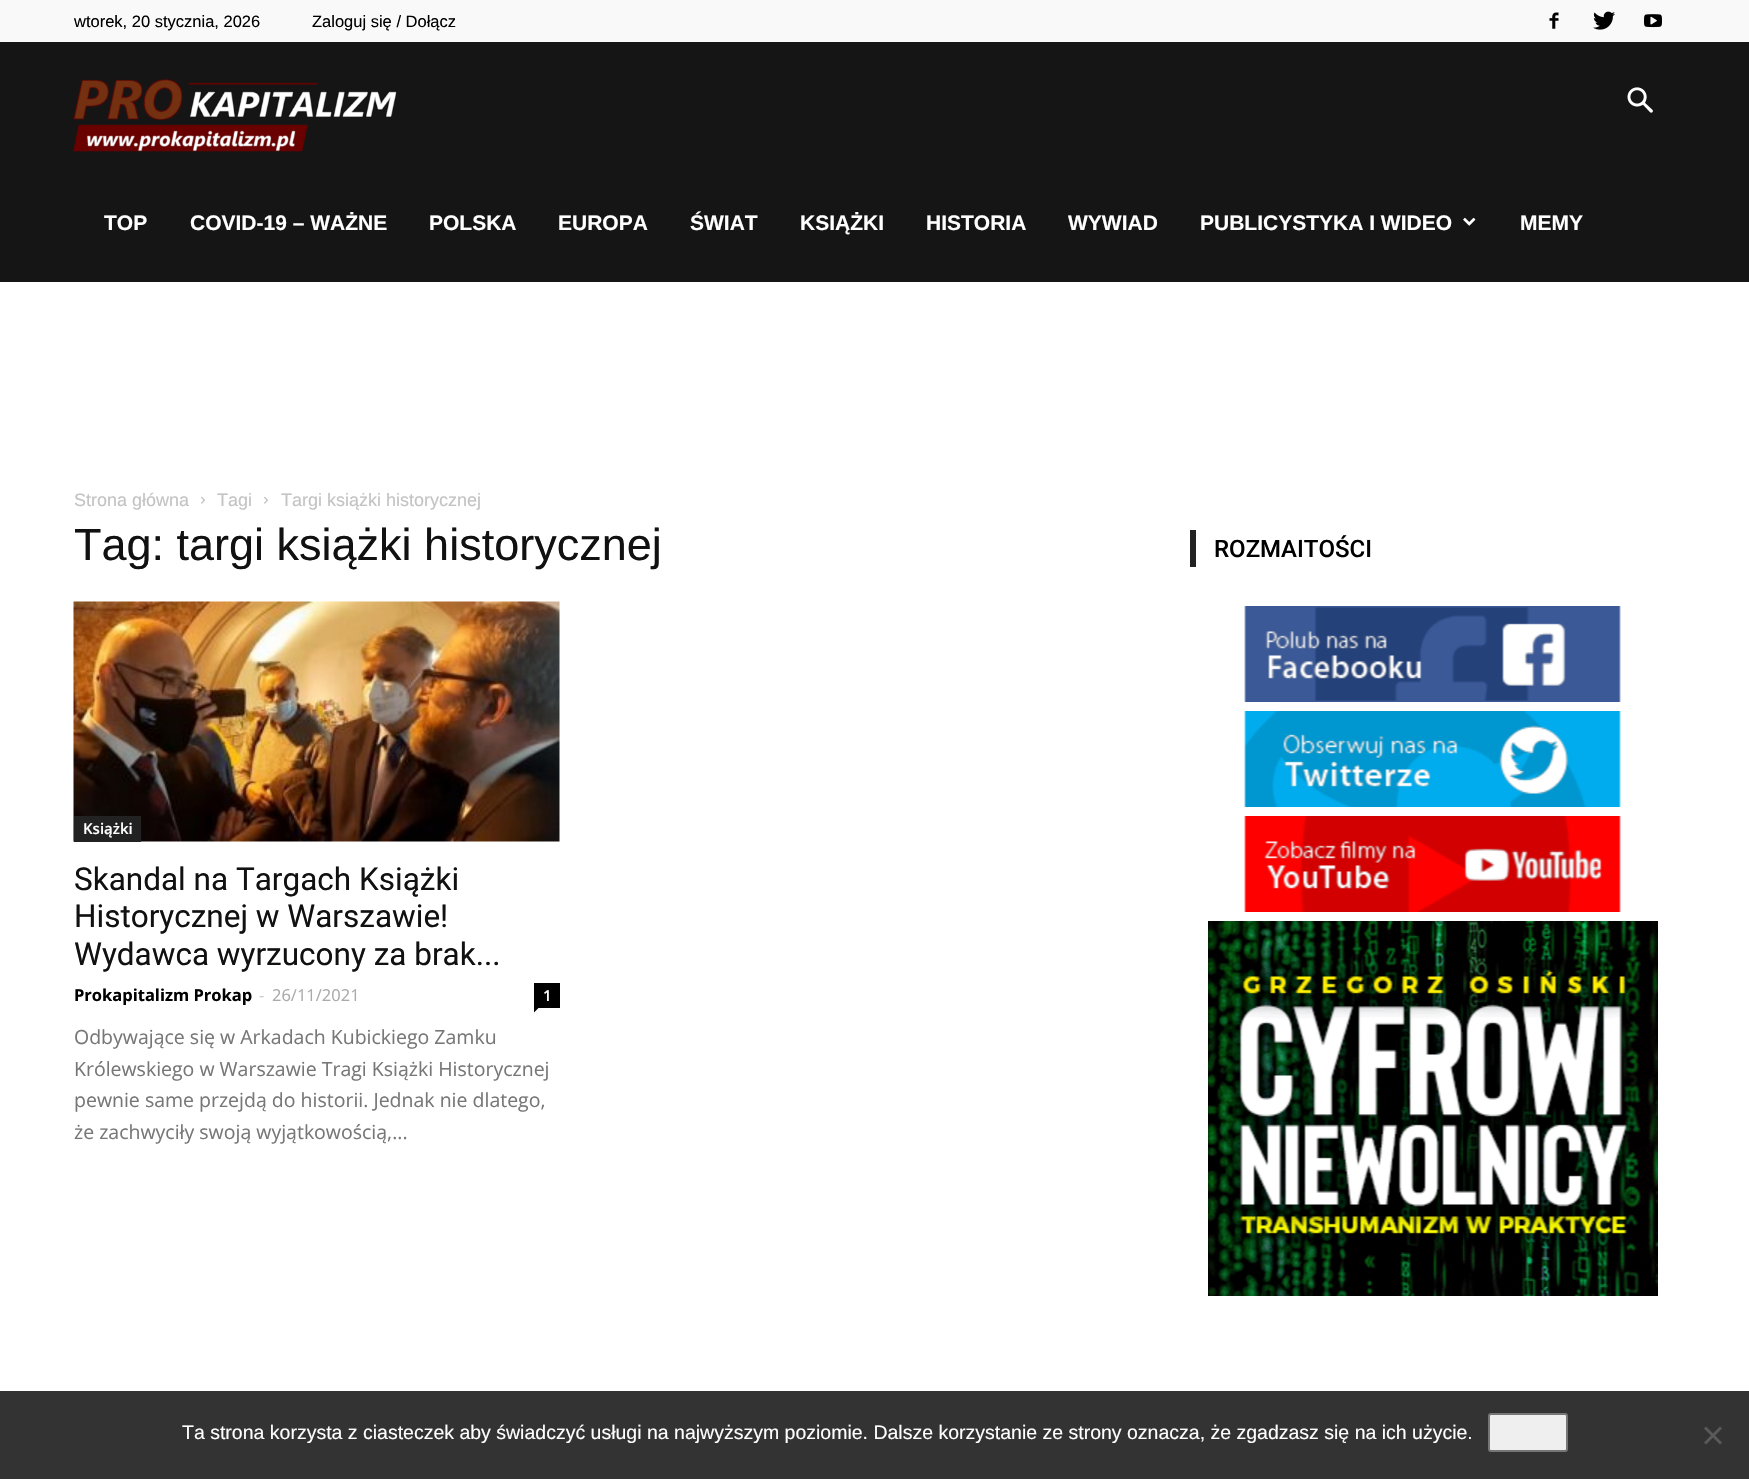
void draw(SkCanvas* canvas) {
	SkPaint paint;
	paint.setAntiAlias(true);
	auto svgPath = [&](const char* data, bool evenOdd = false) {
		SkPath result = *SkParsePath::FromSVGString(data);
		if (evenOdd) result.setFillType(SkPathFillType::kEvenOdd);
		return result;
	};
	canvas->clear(0xffffffff);
	paint.setColor(0xfff9f9f9);
	canvas->drawRect(SkRect::MakeXYWH(0, 0, 1749, 42), paint);
	SkFont f1(fontMgr->matchFamilyStyle("Liberation Sans", SkFontStyle::Normal()), 16.5);
	f1.setSubpixel(true);
	paint.setColor(0xff000000);
	canvas->drawString("wtorek, 20 stycznia, 2026", 74, 27, f1, paint);
	canvas->drawString("Zaloguj się / Dołącz", 312, 27, f1, paint);
	canvas->drawImageRect(SkImages::DeferredFromEncodedData(SkData::MakeFromFileName("img1.png")), SkRect::MakeXYWH(1549, 12, 10, 17), SkSamplingOptions());
	canvas->drawImageRect(SkImages::DeferredFromEncodedData(SkData::MakeFromFileName("img2.png")), SkRect::MakeXYWH(1593, 11, 22, 19), SkSamplingOptions());
	canvas->drawImageRect(SkImages::DeferredFromEncodedData(SkData::MakeFromFileName("img3.png")), SkRect::MakeXYWH(1644, 14, 18, 14), SkSamplingOptions());
	paint.setColor(0xff151515);
	canvas->drawRect(SkRect::MakeXYWH(0, 42, 1749, 240), paint);
	canvas->drawImageRect(SkImages::DeferredFromEncodedData(SkData::MakeFromFileName("img4.png")), SkRect::MakeXYWH(1627, 87, 26, 26), SkSamplingOptions());
	canvas->drawImageRect(SkImages::DeferredFromEncodedData(SkData::MakeFromFileName("img5.png")), SkRect::MakeXYWH(73, 79, 324, 73), SkSamplingOptions());
	SkFont f2(fontMgr->matchFamilyStyle("Liberation Sans", SkFontStyle::Bold()), 21);
	f2.setSubpixel(true);
	paint.setColor(0xffffffff);
	canvas->drawString("TOP", 104, 230, f2, paint);
	canvas->drawString("COVID-19 – WAŻNE", 190, 230, f2, paint);
	canvas->drawString("POLSKA", 429, 230, f2, paint);
	canvas->drawString("EUROPA", 558, 230, f2, paint);
	canvas->drawString("ŚWIAT", 690, 230, f2, paint);
	canvas->drawString("KSIĄŻKI", 800, 230, f2, paint);
	canvas->drawString("HISTORIA", 926, 230, f2, paint);
	canvas->drawString("WYWIAD", 1068, 230, f2, paint);
	canvas->drawString("PUBLICYSTYKA I WIDEO", 1200, 230, f2, paint);
	canvas->drawImageRect(SkImages::DeferredFromEncodedData(SkData::MakeFromFileName("img6.png")), SkRect::MakeXYWH(1463, 217, 13, 9), SkSamplingOptions());
	canvas->drawString("MEMY", 1520, 230, f2, paint);
	SkFont f3(fontMgr->matchFamilyStyle("Liberation Sans", SkFontStyle::Normal()), 18);
	f3.setSubpixel(true);
	paint.setColor(0xffc3c3c3);
	canvas->drawString("Strona główna", 74, 506, f3, paint);
	canvas->drawImageRect(SkImages::DeferredFromEncodedData(SkData::MakeFromFileName("img7.png")), SkRect::MakeXYWH(201, 496, 4, 8), SkSamplingOptions());
	canvas->drawString("Tagi", 217, 506, f3, paint);
	canvas->drawImageRect(SkImages::DeferredFromEncodedData(SkData::MakeFromFileName("img7.png")), SkRect::MakeXYWH(264, 496, 4, 8), SkSamplingOptions());
	canvas->drawString("Targi książki historycznej", 281, 506, f3, paint);
	SkFont f4(fontMgr->matchFamilyStyle("Liberation Sans", SkFontStyle::Normal()), 45);
	f4.setSubpixel(true);
	paint.setColor(0xff111111);
	canvas->drawString("Tag: targi książki historycznej", 74, 560, f4, paint);
	canvas->drawImageRect(SkImages::DeferredFromEncodedData(SkData::MakeFromFileName("img8.png")), SkRect::MakeXYWH(73, 601, 487, 241), SkSamplingOptions());
	paint.setColor(0xff222222);
	canvas->drawRect(SkRect::MakeXYWH(74, 816, 67, 26), paint);
	SkFont f5(fontMgr->matchFamilyStyle("Open Sans", SkFontStyle(600, SkFontStyle::kNormal_Width, SkFontStyle::kUpright_Slant)), 15);
	f5.setSubpixel(true);
	paint.setColor(0xffffffff);
	canvas->drawString("Książki", 83, 834, f5, paint);
	SkFont f6(fontMgr->matchFamilyStyle("Roboto", SkFontStyle::Normal()), 31.5);
	f6.setSubpixel(true);
	paint.setColor(0xff111111);
	canvas->drawString("Skandal na Targach Książki", 74, 890, f6, paint);
	canvas->drawString("Historycznej w Warszawie!", 74, 927, f6, paint);
	canvas->drawString("Wydawca wyrzucony za brak...", 74, 965, f6, paint);
	SkFont f7(fontMgr->matchFamilyStyle("Open Sans", SkFontStyle::Bold()), 16.5);
	f7.setSubpixel(true);
	paint.setColor(0xff000000);
	canvas->drawString("Prokapitalizm Prokap", 74, 1001, f7, paint);
	SkFont f8(fontMgr->matchFamilyStyle("Open Sans", SkFontStyle::Normal()), 16.5);
	f8.setSubpixel(true);
	paint.setColor(0xffcccccc);
	canvas->drawString("-", 259, 1001, f8, paint);
	paint.setColor(0xffaaaaaa);
	canvas->drawString("26/11/2021", 272, 1001, f8, paint);
	paint.setColor(0xff000000);
	canvas->drawRect(SkRect::MakeXYWH(534, 983, 26, 25), paint);
	paint.setColor(0xffffffff);
	canvas->drawString("1", 543, 1001, f5, paint);
	paint.setColor(0xff000000);
	canvas->drawPath(svgPath("M534 1008H538.5L534 1012.5Z"), paint);
	SkFont f9(fontMgr->matchFamilyStyle("Open Sans", SkFontStyle::Normal()), 19.5);
	f9.setSubpixel(true);
	paint.setColor(0xff777777);
	canvas->drawString("Odbywające się w Arkadach Kubickiego Zamku", 74, 1044, f9, paint);
	canvas->drawString("Królewskiego w Warszawie Tragi Książki Historycznej", 74, 1076, f9, paint);
	canvas->drawString("pewnie same przejdą do historii. Jednak nie dlatego,", 74, 1107, f9, paint);
	canvas->drawString("że zachwyciły swoją wyjątkowością,...", 74, 1139, f9, paint);
	paint.setColor(0xff222222);
	canvas->drawRect(SkRect::MakeXYWH(1190, 530, 6, 37), paint);
	SkFont f10(fontMgr->matchFamilyStyle("Roboto", SkFontStyle(500, SkFontStyle::kNormal_Width, SkFontStyle::kUpright_Slant)), 24);
	f10.setSubpixel(true);
	paint.setColor(0xff000000);
	canvas->drawString("ROZMAITOŚCI", 1214, 557, f10, paint);
	canvas->drawImageRect(SkImages::DeferredFromEncodedData(SkData::MakeFromFileName("img9.png")), SkRect::MakeXYWH(1244, 606, 377, 96), SkSamplingOptions());
	canvas->drawImageRect(SkImages::DeferredFromEncodedData(SkData::MakeFromFileName("img10.png")), SkRect::MakeXYWH(1244, 711, 377, 96), SkSamplingOptions());
	canvas->drawImageRect(SkImages::DeferredFromEncodedData(SkData::MakeFromFileName("img11.png")), SkRect::MakeXYWH(1244, 816, 377, 96), SkSamplingOptions());
	canvas->drawImageRect(SkImages::DeferredFromEncodedData(SkData::MakeFromFileName("img12.png")), SkRect::MakeXYWH(1208, 921, 450, 375), SkSamplingOptions());
	paint.setColor(0xff333333);
	canvas->drawRect(SkRect::MakeXYWH(0, 1391, 1749, 88), paint);
	SkFont f11(fontMgr->matchFamilyStyle("Liberation Sans", SkFontStyle::Normal()), 19.5);
	f11.setSubpixel(true);
	paint.setColor(0xffffffff);
	canvas->drawString("Ta strona korzysta z ciasteczek aby świadczyć usługi na najwyższym poziomie. Dalsze korzystanie ze strony oznacza, że zgadzasz się na ich użycie.", 182, 1439, f11, paint);
	paint.setColor(0xffefefef);
	canvas->drawRoundRect(SkRect::MakeXYWH(1489, 1414, 78, 37), 2, 2, paint);
	paint.setStroke(true);
	paint.setStrokeWidth(2);
	paint.setColor(0xff767676);
	canvas->drawRoundRect(SkRect::MakeXYWH(1489, 1414, 78, 37), 2, 2, paint);
	paint.setStroke(false);
	paint.setColor(0xff5a5a5a);
	canvas->drawPath(svgPath("M1720 1426.5L1722 1428.5L1706 1444.5L1704 1442.5Z"), paint);
	canvas->drawPath(svgPath("M1704 1428.5L1706 1426.5L1722 1442.5L1720 1444.5Z"), paint);
}
